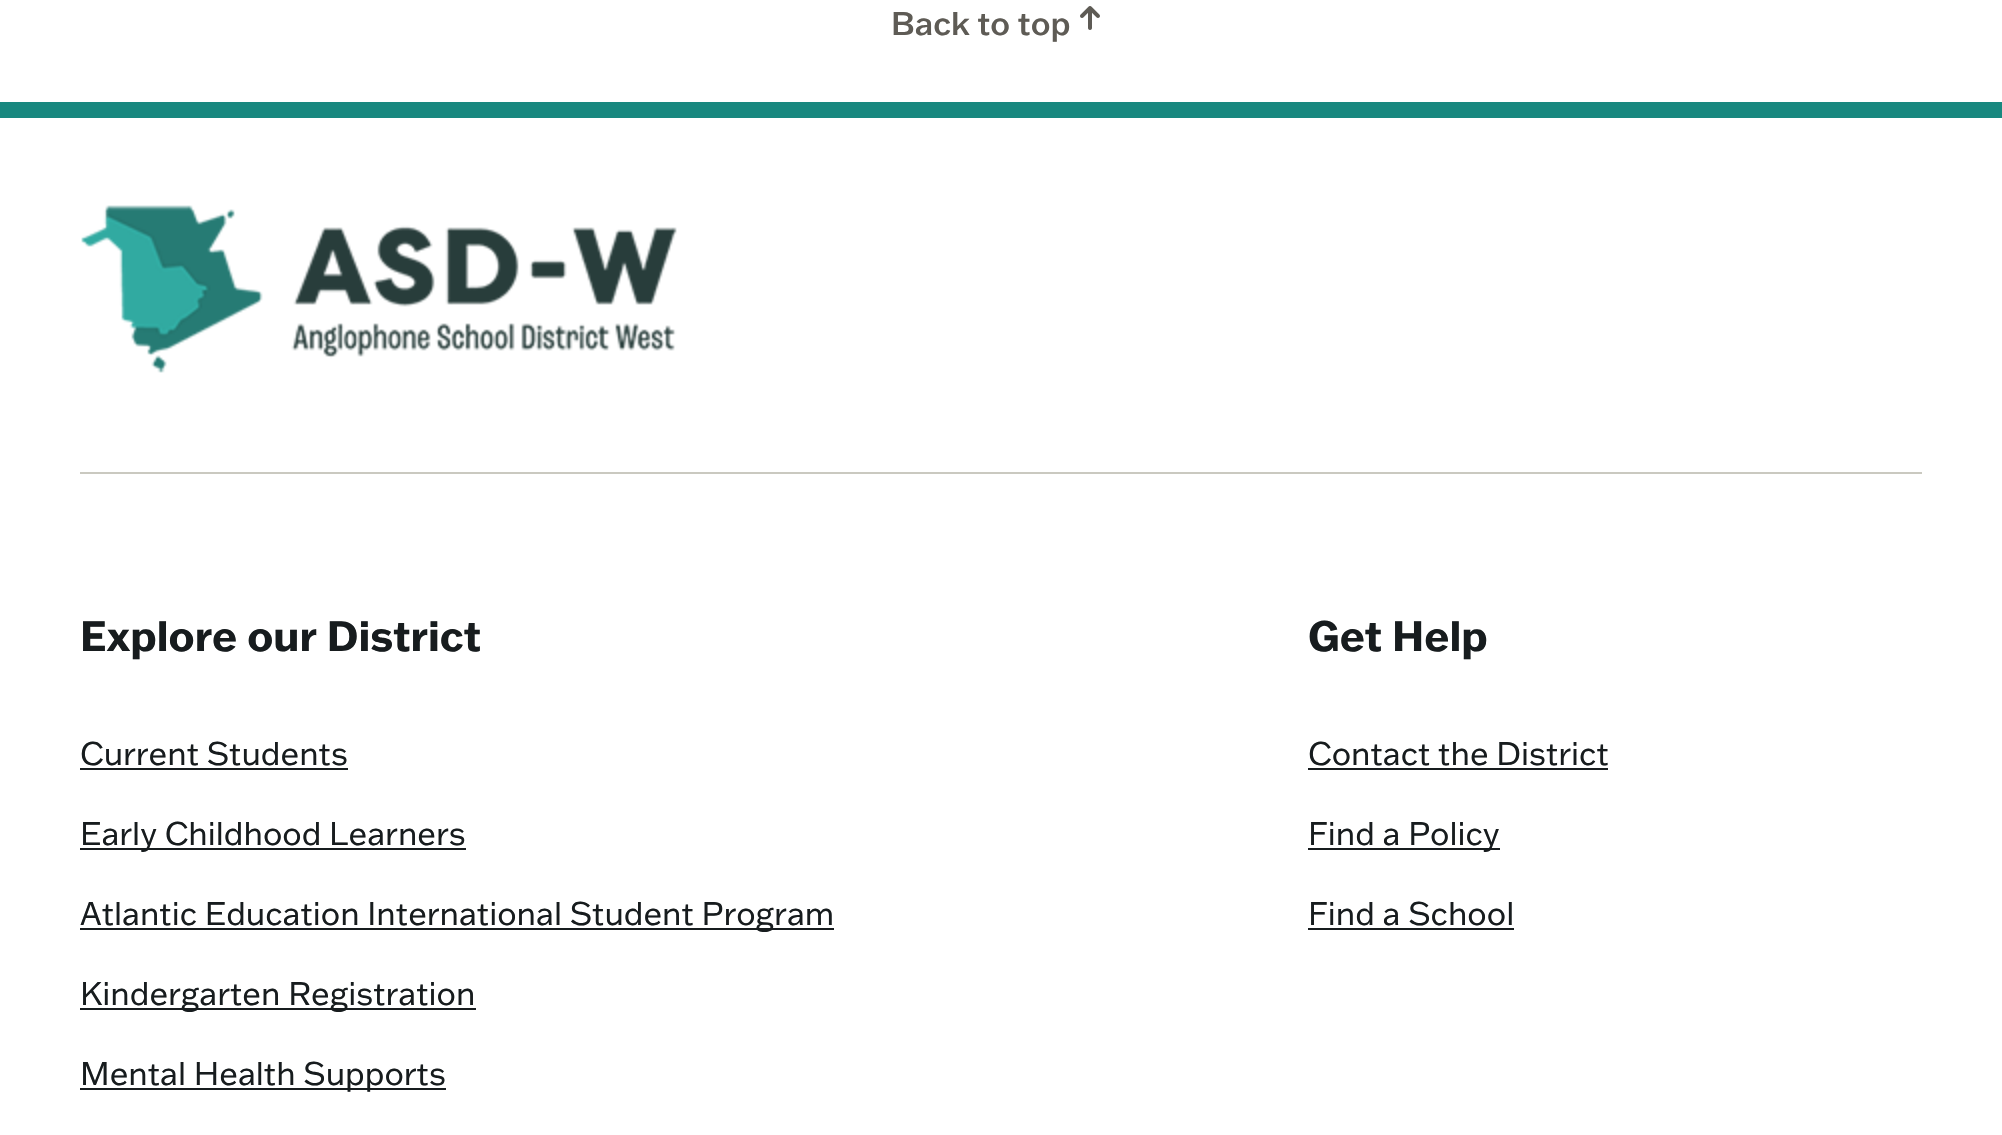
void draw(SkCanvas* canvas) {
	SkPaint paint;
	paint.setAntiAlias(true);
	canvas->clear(0xffffffff);
	SkFont f1(fontMgr->matchFamilyStyle("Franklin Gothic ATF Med", SkFontStyle(500, SkFontStyle::kNormal_Width, SkFontStyle::kUpright_Slant)), 32);
	f1.setSubpixel(true);
	paint.setColor(0xff5e5b55);
	canvas->drawString("Back to top", 891, 35, f1, paint);
	canvas->drawImageRect(SkImages::DeferredFromEncodedData(SkData::MakeFromFileName("img1.png")), SkRect::MakeXYWH(1080, 6, 20, 24), SkSamplingOptions());
	paint.setColor(0xff18887f);
	canvas->drawRect(SkRect::MakeXYWH(0, 102, 2002, 16), paint);
	canvas->drawImageRect(SkImages::DeferredFromEncodedData(SkData::MakeFromFileName("img2.png")), SkRect::MakeXYWH(81, 205, 596, 168), SkSamplingOptions());
	paint.setColor(0xffcac9c0);
	canvas->drawRect(SkRect::MakeXYWH(80, 472, 1842, 2), paint);
	SkFont f2(fontMgr->matchFamilyStyle("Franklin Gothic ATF", SkFontStyle::Bold()), 41.5);
	f2.setSubpixel(true);
	paint.setColor(0xff171c1e);
	canvas->drawString("Explore our District", 80, 651, f2, paint);
	SkFont f3(fontMgr->matchFamilyStyle("Franklin Gothic ATF", SkFontStyle::Normal()), 32);
	f3.setSubpixel(true);
	canvas->drawString("Current Students", 80, 765, f3, paint);
	canvas->drawRect(SkRect::MakeXYWH(80, 768, 268, 2), paint);
	canvas->drawRect(SkRect::MakeXYWH(80, 848, 386, 2), paint);
	canvas->drawString("Early Childhood Learners", 80, 845, f3, paint);
	canvas->drawRect(SkRect::MakeXYWH(80, 928, 754, 2), paint);
	canvas->drawString("Atlantic Education International Student Program", 80, 925, f3, paint);
	canvas->drawRect(SkRect::MakeXYWH(80, 1008, 396, 2), paint);
	canvas->drawString("Kindergarten Registration", 80, 1005, f3, paint);
	canvas->drawRect(SkRect::MakeXYWH(80, 1088, 366, 2), paint);
	canvas->drawString("Mental Health Supports", 80, 1085, f3, paint);
	canvas->drawString("Get Help", 1308, 651, f2, paint);
	canvas->drawString("Contact the District", 1308, 765, f3, paint);
	canvas->drawRect(SkRect::MakeXYWH(1308, 768, 300, 2), paint);
	canvas->drawRect(SkRect::MakeXYWH(1308, 848, 192, 2), paint);
	canvas->drawString("Find a Policy", 1308, 845, f3, paint);
	canvas->drawString("Find a School", 1308, 925, f3, paint);
	canvas->drawRect(SkRect::MakeXYWH(1308, 928, 206, 2), paint);
}
